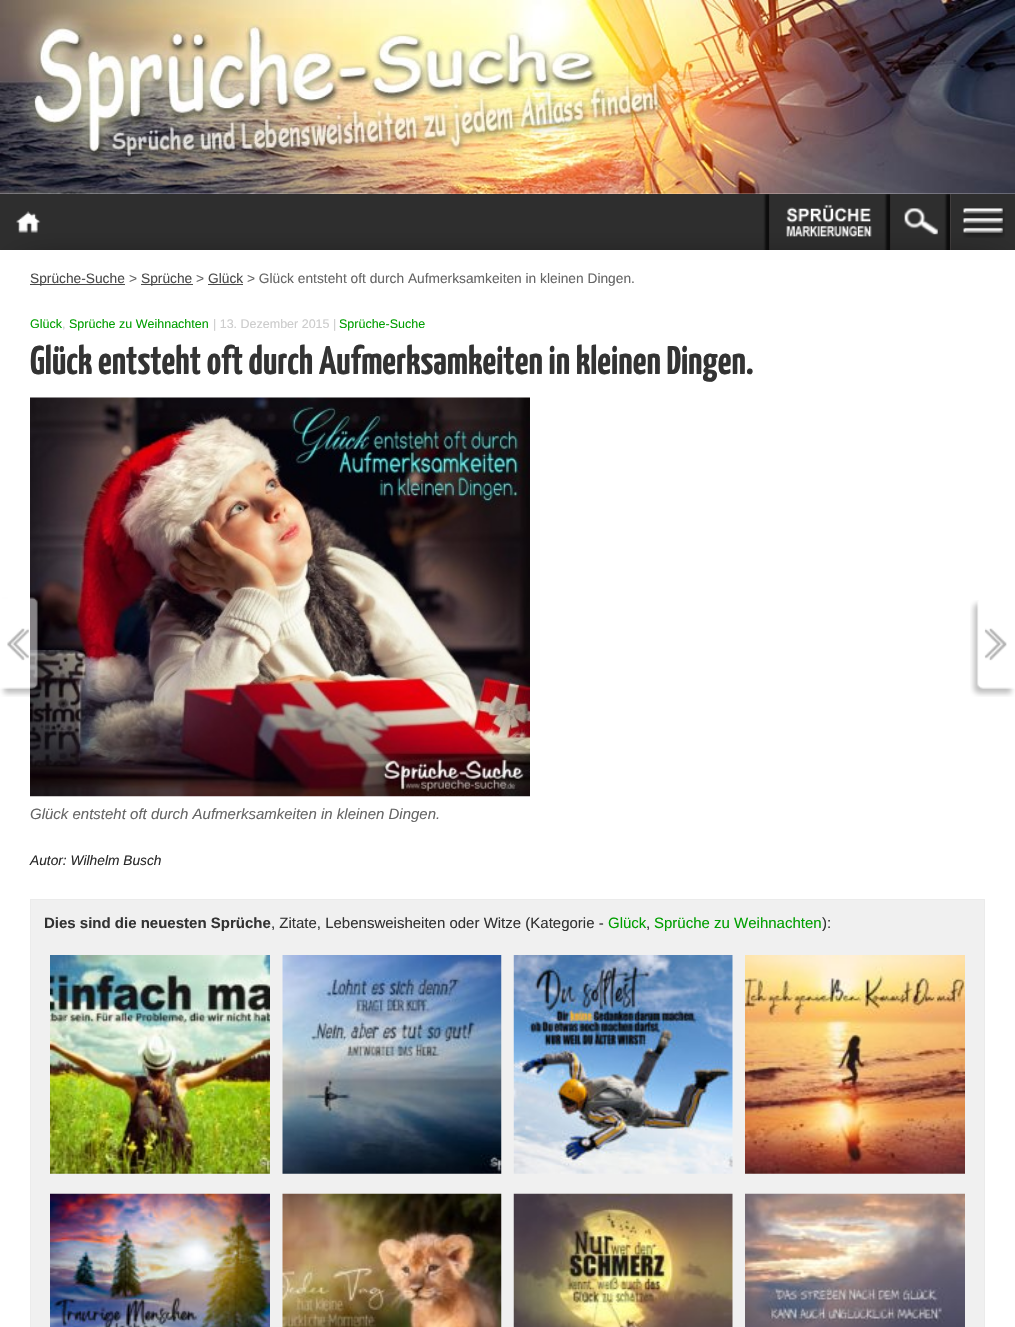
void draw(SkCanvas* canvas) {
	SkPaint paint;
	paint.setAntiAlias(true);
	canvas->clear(0xffffffff);
	paint.setColor(0xff2e2e2e);
	canvas->drawRect(SkRect::MakeXYWH(0, 194, 1015, 56), paint);
	canvas->save();
	canvas->clipRect(SkRect::MakeXYWH(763, 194, 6, 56));
	paint.setColor(0xbf000000);
	paint.setMaskFilter(SkMaskFilter::MakeBlur(kNormal_SkBlurStyle, 1));
	canvas->drawRect(SkRect::MakeXYWH(765, 194, 121, 60), paint);
	paint.setMaskFilter(nullptr);
	canvas->restore();
	canvas->save();
	canvas->clipRect(SkRect::MakeXYWH(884, 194, 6, 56));
	paint.setMaskFilter(SkMaskFilter::MakeBlur(kNormal_SkBlurStyle, 1));
	canvas->drawRect(SkRect::MakeXYWH(886, 194, 60, 59), paint);
	paint.setMaskFilter(nullptr);
	canvas->restore();
	canvas->save();
	canvas->clipRect(SkRect::MakeXYWH(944, 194, 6, 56));
	paint.setMaskFilter(SkMaskFilter::MakeBlur(kNormal_SkBlurStyle, 1));
	canvas->drawRect(SkRect::MakeXYWH(946, 194, 65, 59), paint);
	paint.setMaskFilter(nullptr);
	canvas->restore();
	canvas->drawImageRect(SkImages::DeferredFromEncodedData(SkData::MakeFromFileName("img1.png")), SkRect::MakeXYWH(0, 0, 1015, 194), SkSamplingOptions());
	canvas->drawImageRect(SkImages::DeferredFromEncodedData(SkData::MakeFromFileName("img2.png")), SkRect::MakeXYWH(16, 211, 25, 22), SkSamplingOptions());
	paint.setColor(0xff2c2a2a);
	canvas->drawRect(SkRect::MakeXYWH(769, 194, 1, 56), paint);
	canvas->drawImageRect(SkImages::DeferredFromEncodedData(SkData::MakeFromFileName("img3.png")), SkRect::MakeXYWH(786, 204, 86, 33), SkSamplingOptions());
	canvas->drawRect(SkRect::MakeXYWH(890, 194, 1, 56), paint);
	canvas->drawImageRect(SkImages::DeferredFromEncodedData(SkData::MakeFromFileName("img4.png")), SkRect::MakeXYWH(904, 208, 34, 27), SkSamplingOptions());
	paint.setColor(0xff423e3e);
	canvas->drawRect(SkRect::MakeXYWH(950, 194, 1, 56), paint);
	canvas->drawImageRect(SkImages::DeferredFromEncodedData(SkData::MakeFromFileName("img5.png")), SkRect::MakeXYWH(963, 208, 42, 30), SkSamplingOptions());
	paint.setColor(0xff070606);
	paint.setMaskFilter(SkMaskFilter::MakeBlur(kNormal_SkBlurStyle, 19));
	canvas->drawRect(SkRect::MakeXYWH(21, 271, 978, 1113), paint);
	paint.setMaskFilter(nullptr);
	paint.setColor(0xffffffff);
	canvas->drawRect(SkRect::MakeXYWH(0, 250, 1015, 1077), paint);
	paint.setColor(0xff4a4a4a);
	canvas->drawRect(SkRect::MakeXYWH(30, 284, 95, 1), paint);
	SkFont f1(fontMgr->matchFamilyStyle("Liberation Sans", SkFontStyle::Normal()), 13.75);
	f1.setSubpixel(true);
	canvas->drawString("Sprüche-Suche", 30, 283, f1, paint);
	paint.setColor(0xff666666);
	canvas->drawString(">", 129, 283, f1, paint);
	paint.setColor(0xff4a4a4a);
	canvas->drawRect(SkRect::MakeXYWH(141, 284, 52, 1), paint);
	canvas->drawString("Sprüche", 141, 283, f1, paint);
	paint.setColor(0xff666666);
	canvas->drawString(">", 196, 283, f1, paint);
	paint.setColor(0xff4a4a4a);
	canvas->drawString("Glück", 208, 283, f1, paint);
	canvas->drawRect(SkRect::MakeXYWH(208, 284, 35, 1), paint);
	paint.setColor(0xff666666);
	canvas->drawString("> Glück entsteht oft durch Aufmerksamkeiten in kleinen Dingen.", 247, 283, f1, paint);
	SkFont f2(fontMgr->matchFamilyStyle("Liberation Sans", SkFontStyle::Normal()), 12.5);
	f2.setSubpixel(true);
	paint.setColor(0xff009f00);
	canvas->drawString("Glück", 30, 328, f2, paint);
	paint.setColor(0xffcccccc);
	canvas->drawString(",", 62, 328, f2, paint);
	paint.setColor(0xff009f00);
	canvas->drawString("Sprüche zu Weihnachten", 69, 328, f2, paint);
	paint.setColor(0xffcccccc);
	canvas->drawString("| 13. Dezember 2015 |", 213, 328, f2, paint);
	paint.setColor(0xff009f00);
	canvas->drawString("Sprüche-Suche", 339, 328, f2, paint);
	SkFont f3(fontMgr->matchFamilyStyle("Yanone Kaffeesatz", SkFontStyle::Bold()), 40);
	f3.setSubpixel(true);
	paint.setColor(0xff333333);
	canvas->drawString("Glück entsteht oft durch Aufmerksamkeiten in kleinen Dingen.", 30, 374, f3, paint);
	canvas->drawImageRect(SkImages::DeferredFromEncodedData(SkData::MakeFromFileName("img8.png")), SkRect::MakeXYWH(30, 397, 500, 400), SkSamplingOptions());
	canvas->drawImageRect(SkImages::DeferredFromEncodedData(SkData::MakeFromFileName("img6.png")), SkRect::MakeXYWH(0, 597, 44, 100), SkSamplingOptions());
	canvas->drawImageRect(SkImages::DeferredFromEncodedData(SkData::MakeFromFileName("img7.png")), SkRect::MakeXYWH(970, 600, 45, 97), SkSamplingOptions());
	SkFont f4(fontMgr->matchFamilyStyle("Liberation Sans", SkFontStyle::Italic()), 15);
	f4.setSubpixel(true);
	paint.setColor(0xff666666);
	canvas->drawString("Glück entsteht oft durch Aufmerksamkeiten in kleinen Dingen.", 30, 819, f4, paint);
	SkFont f5(fontMgr->matchFamilyStyle("Liberation Sans", SkFontStyle::Italic()), 13.75);
	f5.setSubpixel(true);
	paint.setColor(0xff2a2a2a);
	canvas->drawString("Autor: Wilhelm Busch", 30, 865, f5, paint);
	paint.setColor(0xfff0f0f0);
	canvas->drawRect(SkRect::MakeXYWH(30.5, 899.5, 954, 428), paint);
	paint.setStroke(true);
	paint.setStrokeWidth(1);
	paint.setColor(0xffebebeb);
	canvas->drawRect(SkRect::MakeXYWH(30.5, 899.5, 954, 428), paint);
	SkFont f6(fontMgr->matchFamilyStyle("Liberation Sans", SkFontStyle::Bold()), 15);
	f6.setSubpixel(true);
	paint.setStroke(false);
	paint.setColor(0xff333333);
	canvas->drawString("Dies sind die neuesten Sprüche", 44, 928, f6, paint);
	SkFont f7(fontMgr->matchFamilyStyle("Liberation Sans", SkFontStyle::Normal()), 15);
	f7.setSubpixel(true);
	canvas->drawString(", Zitate, Lebensweisheiten oder Witze (Kategorie -", 271, 928, f7, paint);
	paint.setColor(0xff009f00);
	canvas->drawString("Glück", 608, 928, f7, paint);
	paint.setColor(0xff333333);
	canvas->drawString(",", 646, 928, f7, paint);
	paint.setColor(0xff009f00);
	canvas->drawString("Sprüche zu Weihnachten", 654, 928, f7, paint);
	paint.setColor(0xff333333);
	canvas->drawString("):", 822, 928, f7, paint);
	canvas->drawImageRect(SkImages::DeferredFromEncodedData(SkData::MakeFromFileName("img9.png")), SkRect::MakeXYWH(50, 955, 220, 219), SkSamplingOptions());
	canvas->drawImageRect(SkImages::DeferredFromEncodedData(SkData::MakeFromFileName("img10.png")), SkRect::MakeXYWH(282, 955, 220, 219), SkSamplingOptions());
	canvas->drawImageRect(SkImages::DeferredFromEncodedData(SkData::MakeFromFileName("img11.png")), SkRect::MakeXYWH(513, 955, 220, 219), SkSamplingOptions());
	canvas->drawImageRect(SkImages::DeferredFromEncodedData(SkData::MakeFromFileName("img12.png")), SkRect::MakeXYWH(745, 955, 220, 219), SkSamplingOptions());
	canvas->drawImageRect(SkImages::DeferredFromEncodedData(SkData::MakeFromFileName("img13.png")), SkRect::MakeXYWH(50, 1193, 220, 134), SkSamplingOptions());
	canvas->drawImageRect(SkImages::DeferredFromEncodedData(SkData::MakeFromFileName("img14.png")), SkRect::MakeXYWH(282, 1193, 220, 134), SkSamplingOptions());
	canvas->drawImageRect(SkImages::DeferredFromEncodedData(SkData::MakeFromFileName("img15.png")), SkRect::MakeXYWH(513, 1193, 220, 134), SkSamplingOptions());
	canvas->drawImageRect(SkImages::DeferredFromEncodedData(SkData::MakeFromFileName("img16.png")), SkRect::MakeXYWH(745, 1193, 220, 134), SkSamplingOptions());
}
